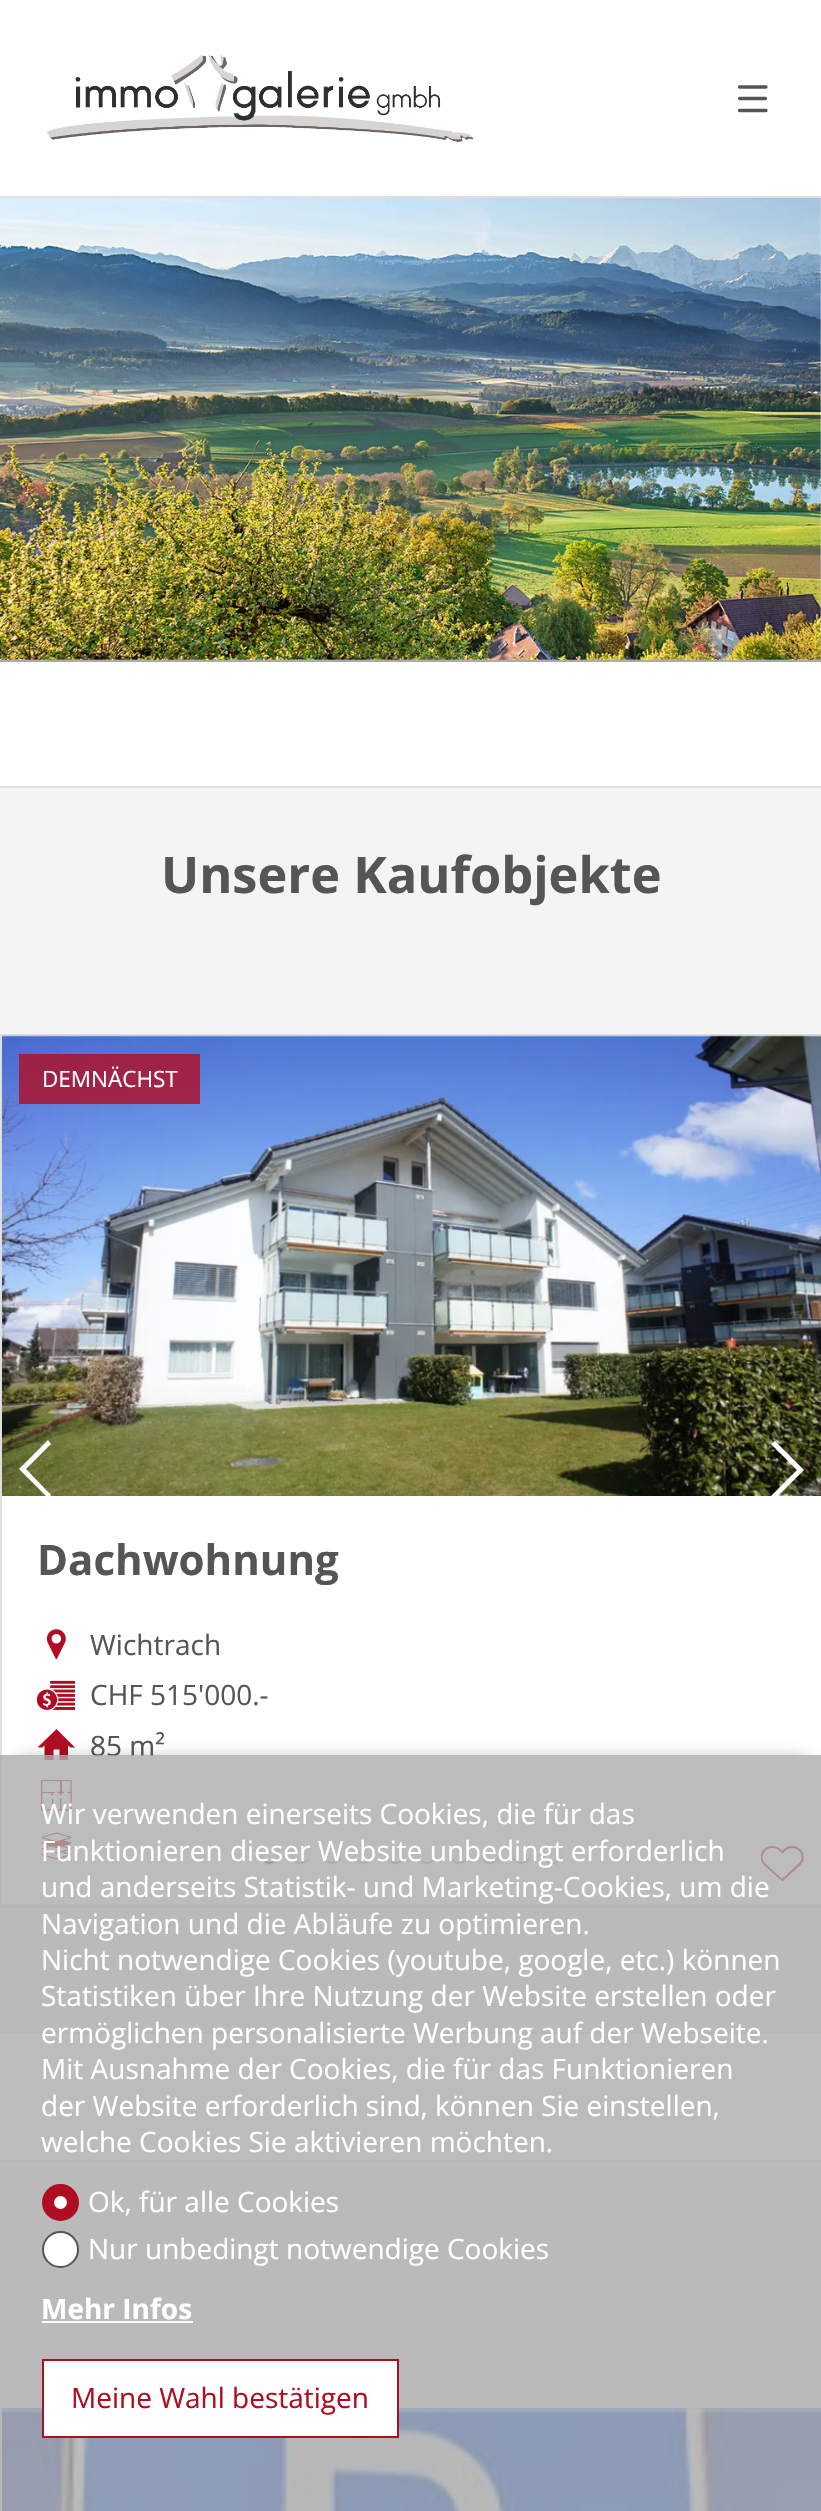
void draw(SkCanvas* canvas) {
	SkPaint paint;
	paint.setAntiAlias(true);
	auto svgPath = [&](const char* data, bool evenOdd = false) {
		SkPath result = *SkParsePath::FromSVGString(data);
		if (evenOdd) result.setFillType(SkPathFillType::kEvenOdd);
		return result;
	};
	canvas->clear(0xffffffff);
	paint.setColor(0xffdfdfdf);
	canvas->drawRect(SkRect::MakeXYWH(0, 196, 821, 2), paint);
	canvas->drawImageRect(SkImages::DeferredFromEncodedData(SkData::MakeFromFileName("img1.png")), SkRect::MakeXYWH(47, 54, 427, 88), SkSamplingOptions());
	paint.setStroke(true);
	paint.setStrokeWidth(3.3);
	paint.setStrokeCap(SkPaint::kRound_Cap);
	paint.setColor(0xff555555);
	canvas->drawPath(svgPath("M739.5 87H766M739.5 98.5H765.5M739.5 110.5H766"), paint);
	paint.setStroke(false);
	paint.setColor(0xfff4f4f4);
	canvas->drawRect(SkRect::MakeXYWH(0, 198, 821, 462), paint);
	paint.setColor(0xffaaaaaa);
	canvas->drawRect(SkRect::MakeXYWH(0, 660, 821, 2), paint);
	canvas->drawImageRect(SkImages::DeferredFromEncodedData(SkData::MakeFromFileName("img2.png")), SkRect::MakeXYWH(0, 198, 821, 462), SkSamplingOptions());
	paint.setColor(0xffdfdfdf);
	canvas->drawRect(SkRect::MakeXYWH(0, 786, 821, 2), paint);
	paint.setColor(0xfff4f4f4);
	canvas->drawRect(SkRect::MakeXYWH(0, 788, 821, 246), paint);
	paint.setColor(0xffdfdfdf);
	canvas->drawRect(SkRect::MakeXYWH(0, 1906, 821, 2), paint);
	SkFont f1(fontMgr->matchFamilyStyle("Open Sans", SkFontStyle::Bold()), 50.5);
	f1.setSubpixel(true);
	paint.setColor(0xff555555);
	canvas->drawString("Unsere Kaufobjekte", 161, 893, f1, paint);
	paint.setStroke(true);
	paint.setStrokeWidth(2);
	paint.setStrokeCap(SkPaint::kButt_Cap);
	paint.setColor(0xffdfdfdf);
	canvas->drawRect(SkRect::MakeXYWH(1, 1035, 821, 870), paint);
	canvas->drawImageRect(SkImages::DeferredFromEncodedData(SkData::MakeFromFileName("img3.png")), SkRect::MakeXYWH(2, 1035, 819, 461), SkSamplingOptions());
	paint.setStroke(false);
	paint.setColor(0xffffffff);
	canvas->drawPath(svgPath("M51 1444L48 1440L19 1469L48 1498L51 1495L26 1469Z"), paint);
	paint.setColor(0xccb00d22);
	canvas->drawRect(SkRect::MakeXYWH(19, 1054, 181, 50), paint);
	SkFont f2(fontMgr->matchFamilyStyle("Open Sans", SkFontStyle::Normal()), 22.5);
	f2.setSubpixel(true);
	paint.setColor(0xffffffff);
	canvas->drawString("DEMNÄCHST", 42, 1087, f2, paint);
	SkFont f3(fontMgr->matchFamilyStyle("Open Sans", SkFontStyle::Bold()), 42);
	f3.setSubpixel(true);
	paint.setColor(0xff555555);
	canvas->drawString("Dachwohnung", 37, 1575, f3, paint);
	canvas->drawImageRect(SkImages::DeferredFromEncodedData(SkData::MakeFromFileName("img4.png")), SkRect::MakeXYWH(46, 1629, 20, 30), SkSamplingOptions());
	SkFont f4(fontMgr->matchFamilyStyle("Open Sans", SkFontStyle::Normal()), 28);
	f4.setSubpixel(true);
	canvas->drawString("Wichtrach", 90, 1655, f4, paint);
	canvas->drawImageRect(SkImages::DeferredFromEncodedData(SkData::MakeFromFileName("img5.png")), SkRect::MakeXYWH(37, 1680, 38, 30), SkSamplingOptions());
	canvas->drawString("CHF 515'000.-", 90, 1705, f4, paint);
	paint.setColor(0xffb00d22);
	canvas->drawPath(svgPath("M56.5 1729L37.5 1747.5H42L44.5 1745.5V1760H53.5V1749.5H59.5V1760H68V1745.5L70.5 1747.5H75Z"), paint);
	paint.setColor(0xff555555);
	canvas->drawString("85 m²", 90, 1756, f4, paint);
	canvas->drawImageRect(SkImages::DeferredFromEncodedData(SkData::MakeFromFileName("img6.png")), SkRect::MakeXYWH(40, 1780, 32, 31), SkSamplingOptions());
	canvas->drawImageRect(SkImages::DeferredFromEncodedData(SkData::MakeFromFileName("img7.png")), SkRect::MakeXYWH(41, 1832, 31, 28), SkSamplingOptions());
	canvas->drawImageRect(SkImages::DeferredFromEncodedData(SkData::MakeFromFileName("img8.png")), SkRect::MakeXYWH(761, 1846, 43, 36), SkSamplingOptions());
	paint.setColor(0xffffffff);
	canvas->drawPath(svgPath("M771 1496L775 1499L804 1470L775 1441L771 1444L797 1470Z"), paint);
	paint.setColor(0xbf000000);
	paint.setMaskFilter(SkMaskFilter::MakeBlur(kNormal_SkBlurStyle, 1));
	canvas->drawRoundRect(SkRect::MakeXYWH(261, 1846, 17, 18), 8.5, 8.5, paint);
	paint.setMaskFilter(nullptr);
	paint.setColor(0xffffffff);
	canvas->drawCircle(269.5, 1853.5, 8.5, paint);
	paint.setColor(0xbf808080);
	paint.setMaskFilter(SkMaskFilter::MakeBlur(kNormal_SkBlurStyle, 1));
	canvas->drawRoundRect(SkRect::MakeXYWH(292, 1846, 18, 18), 9, 9, paint);
	paint.setMaskFilter(nullptr);
	paint.setColor(0xffffffff);
	canvas->drawRoundRect(SkRect::MakeXYWH(292, 1845, 18, 17), 8.5, 8.5, paint);
	paint.setColor(0xbf808080);
	paint.setMaskFilter(SkMaskFilter::MakeBlur(kNormal_SkBlurStyle, 1));
	canvas->drawRoundRect(SkRect::MakeXYWH(324, 1846, 17, 18), 8.5, 8.5, paint);
	paint.setMaskFilter(nullptr);
	paint.setColor(0xffffffff);
	canvas->drawCircle(332.5, 1853.5, 8.5, paint);
	paint.setColor(0xbf808080);
	paint.setMaskFilter(SkMaskFilter::MakeBlur(kNormal_SkBlurStyle, 1));
	canvas->drawRoundRect(SkRect::MakeXYWH(355, 1846, 18, 18), 9, 9, paint);
	paint.setMaskFilter(nullptr);
	paint.setColor(0xffffffff);
	canvas->drawRoundRect(SkRect::MakeXYWH(355, 1845, 18, 17), 8.5, 8.5, paint);
	paint.setColor(0xbf808080);
	paint.setMaskFilter(SkMaskFilter::MakeBlur(kNormal_SkBlurStyle, 1));
	canvas->drawRoundRect(SkRect::MakeXYWH(387, 1846, 17, 18), 8.5, 8.5, paint);
	paint.setMaskFilter(nullptr);
	paint.setColor(0xffffffff);
	canvas->drawCircle(395.5, 1853.5, 8.5, paint);
	paint.setColor(0xbf808080);
	paint.setMaskFilter(SkMaskFilter::MakeBlur(kNormal_SkBlurStyle, 1));
	canvas->drawRoundRect(SkRect::MakeXYWH(418, 1846, 18, 18), 9, 9, paint);
	paint.setMaskFilter(nullptr);
	paint.setColor(0xffffffff);
	canvas->drawRoundRect(SkRect::MakeXYWH(418, 1845, 18, 17), 8.5, 8.5, paint);
	paint.setColor(0xbf808080);
	paint.setMaskFilter(SkMaskFilter::MakeBlur(kNormal_SkBlurStyle, 1));
	canvas->drawRoundRect(SkRect::MakeXYWH(450, 1846, 17, 18), 8.5, 8.5, paint);
	paint.setMaskFilter(nullptr);
	paint.setColor(0xffffffff);
	canvas->drawCircle(458.5, 1853.5, 8.5, paint);
	paint.setColor(0xbf808080);
	paint.setMaskFilter(SkMaskFilter::MakeBlur(kNormal_SkBlurStyle, 1));
	canvas->drawRoundRect(SkRect::MakeXYWH(481, 1846, 18, 18), 9, 9, paint);
	paint.setMaskFilter(nullptr);
	paint.setColor(0xffffffff);
	canvas->drawRoundRect(SkRect::MakeXYWH(481, 1845, 18, 17), 8.5, 8.5, paint);
	paint.setColor(0xbf808080);
	paint.setMaskFilter(SkMaskFilter::MakeBlur(kNormal_SkBlurStyle, 1));
	canvas->drawRoundRect(SkRect::MakeXYWH(513, 1846, 17, 18), 8.5, 8.5, paint);
	paint.setMaskFilter(nullptr);
	paint.setColor(0xffffffff);
	canvas->drawCircle(521.5, 1853.5, 8.5, paint);
	paint.setColor(0xbf808080);
	paint.setMaskFilter(SkMaskFilter::MakeBlur(kNormal_SkBlurStyle, 1));
	canvas->drawRoundRect(SkRect::MakeXYWH(544, 1846, 18, 18), 9, 9, paint);
	paint.setMaskFilter(nullptr);
	paint.setColor(0xffffffff);
	canvas->drawRoundRect(SkRect::MakeXYWH(544, 1845, 18, 17), 8.5, 8.5, paint);
	paint.setColor(0xfff4f4f4);
	canvas->drawRect(SkRect::MakeXYWH(0, 1908, 821, 124), paint);
	paint.setColor(0xffdfdfdf);
	canvas->drawRect(SkRect::MakeXYWH(0, 2032, 821, 2), paint);
	canvas->drawRect(SkRect::MakeXYWH(0, 2160, 821, 1), paint);
	paint.setColor(0xfff4f4f4);
	canvas->drawRect(SkRect::MakeXYWH(0, 2161, 821, 247), paint);
	paint.setStroke(true);
	paint.setColor(0xffdfdfdf);
	canvas->drawRect(SkRect::MakeXYWH(1, 2409, 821, 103), paint);
	canvas->drawImageRect(SkImages::DeferredFromEncodedData(SkData::MakeFromFileName("img9.png")), SkRect::MakeXYWH(2, 2408, 819, 103), SkSamplingOptions());
	canvas->save();
	canvas->clipPath(svgPath("M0 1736H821V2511H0ZM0 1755H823V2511H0Z", true), true);
	paint.setStroke(false);
	paint.setColor(0xa8000000);
	paint.setMaskFilter(SkMaskFilter::MakeBlur(kNormal_SkBlurStyle, 9));
	canvas->drawRect(SkRect::MakeXYWH(19, 1764, 788, 721), paint);
	paint.setMaskFilter(nullptr);
	canvas->restore();
	paint.setColor(0xccababab);
	canvas->drawRect(SkRect::MakeXYWH(0, 1755, 821, 756), paint);
	paint.setColor(0xffffffff);
	canvas->drawString("Wir verwenden einerseits Cookies, die für das", 41, 1824, f4, paint);
	canvas->drawString("Funktionieren dieser Website unbedingt erforderlich", 41, 1861, f4, paint);
	canvas->drawString("und anderseits Statistik- und Marketing-Cookies, um die", 41, 1897, f4, paint);
	canvas->drawString("Navigation und die Abläufe zu optimieren.", 41, 1934, f4, paint);
	canvas->drawString("Nicht notwendige Cookies (youtube, google, etc.) können", 41, 1970, f4, paint);
	canvas->drawString("Statistiken über Ihre Nutzung der Website erstellen oder", 41, 2006, f4, paint);
	canvas->drawString("ermöglichen personalisierte Werbung auf der Webseite.", 41, 2043, f4, paint);
	canvas->drawString("Mit Ausnahme der Cookies, die für das Funktionieren", 41, 2079, f4, paint);
	canvas->drawString("der Website erforderlich sind, können Sie einstellen,", 41, 2116, f4, paint);
	canvas->drawString("welche Cookies Sie aktivieren möchten.", 41, 2152, f4, paint);
	paint.setColor(0xffb00d22);
	canvas->drawCircle(60.5, 2202.5, 17.5, paint);
	paint.setStroke(true);
	canvas->drawCircle(60.5, 2202.5, 17.5, paint);
	paint.setStroke(false);
	paint.setColor(0xffffffff);
	canvas->drawCircle(60.5, 2202.5, 6.5, paint);
	canvas->drawString("Ok, für alle Cookies", 88, 2212, f4, paint);
	canvas->drawCircle(60.5, 2249.5, 17.5, paint);
	paint.setStroke(true);
	paint.setColor(0xff555555);
	canvas->drawCircle(60.5, 2249.5, 17.5, paint);
	paint.setStroke(false);
	paint.setColor(0xffffffff);
	canvas->drawString("Nur unbedingt notwendige Cookies", 88, 2259, f4, paint);
	SkFont f5(fontMgr->matchFamilyStyle("Open Sans", SkFontStyle::Bold()), 28);
	f5.setSubpixel(true);
	canvas->drawString("Mehr Infos", 41, 2319, f5, paint);
	canvas->drawRect(SkRect::MakeXYWH(42, 2321, 151, 2), paint);
	canvas->drawRect(SkRect::MakeXYWH(43, 2360, 355, 77), paint);
	paint.setStroke(true);
	paint.setColor(0xffb00d22);
	canvas->drawRect(SkRect::MakeXYWH(43, 2360, 355, 77), paint);
	paint.setStroke(false);
	canvas->drawString("Meine Wahl bestätigen", 71, 2408, f4, paint);
}
